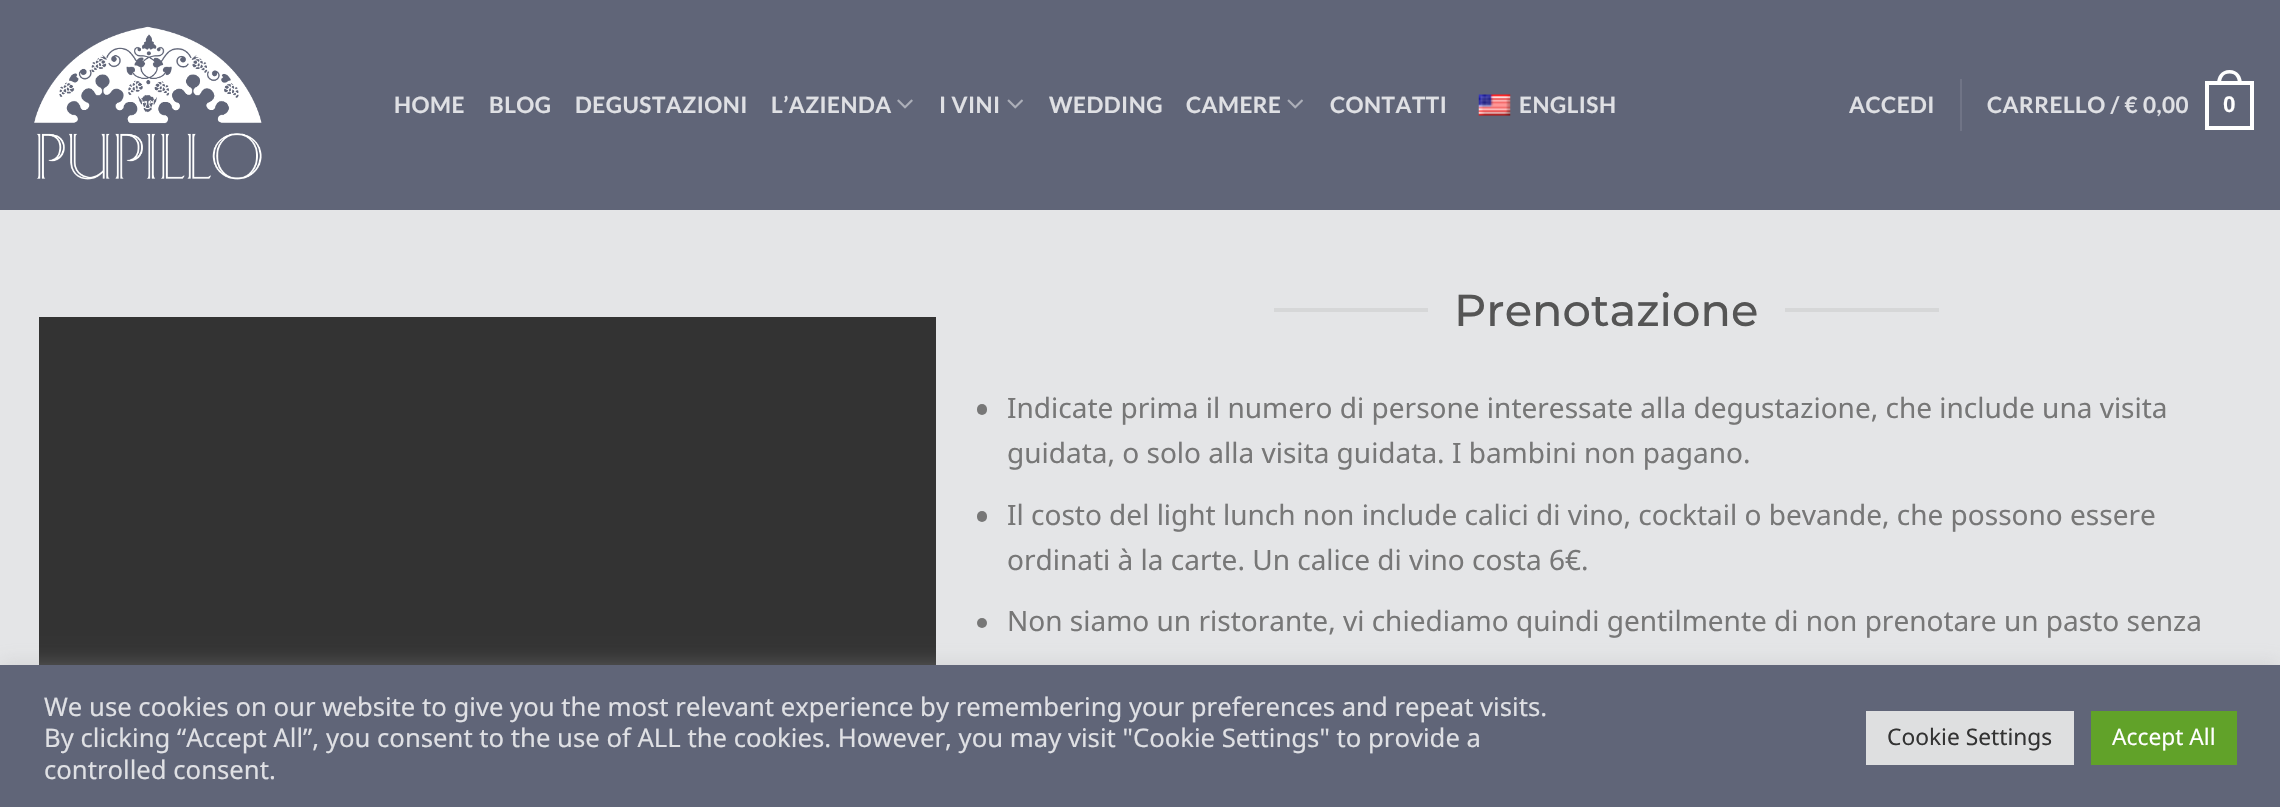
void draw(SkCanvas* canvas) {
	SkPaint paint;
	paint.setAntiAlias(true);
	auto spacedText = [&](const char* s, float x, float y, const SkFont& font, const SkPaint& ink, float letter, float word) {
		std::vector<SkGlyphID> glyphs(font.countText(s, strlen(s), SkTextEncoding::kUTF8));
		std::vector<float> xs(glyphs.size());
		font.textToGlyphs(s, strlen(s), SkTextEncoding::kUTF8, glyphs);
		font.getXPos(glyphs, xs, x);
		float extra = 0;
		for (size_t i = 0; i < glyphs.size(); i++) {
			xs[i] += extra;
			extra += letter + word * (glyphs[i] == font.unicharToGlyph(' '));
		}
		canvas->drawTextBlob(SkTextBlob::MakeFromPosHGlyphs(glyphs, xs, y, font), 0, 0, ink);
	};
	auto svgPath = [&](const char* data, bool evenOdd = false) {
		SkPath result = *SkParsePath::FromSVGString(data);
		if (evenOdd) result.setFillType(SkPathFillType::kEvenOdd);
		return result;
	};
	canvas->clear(0xffe4e5e7);
	paint.setColor(0xff606578);
	canvas->drawRect(SkRect::MakeXYWH(0, 0, 2280, 210), paint);
	canvas->drawImageRect(SkImages::DeferredFromEncodedData(SkData::MakeFromFileName("img1.png")), SkRect::MakeXYWH(34, 26, 228, 154), SkSamplingOptions());
	SkFont f1(fontMgr->matchFamilyStyle("Lato", SkFontStyle::Bold()), 22.5);
	f1.setSubpixel(true);
	paint.setColor(0xffdfe0e4);
	spacedText("HOME", 394, 113, f1, paint, 0.5, 0);
	spacedText("BLOG", 489, 113, f1, paint, 0.5, 0);
	spacedText("DEGUSTAZIONI", 575, 113, f1, paint, 0.5, 0);
	spacedText("L’AZIENDA", 771, 113, f1, paint, 0.5, 0);
	canvas->drawImageRect(SkImages::DeferredFromEncodedData(SkData::MakeFromFileName("img2.png")), SkRect::MakeXYWH(897, 99, 16, 10), SkSamplingOptions());
	spacedText("I VINI", 939, 113, f1, paint, 0.5, 0);
	canvas->drawImageRect(SkImages::DeferredFromEncodedData(SkData::MakeFromFileName("img3.png")), SkRect::MakeXYWH(1007, 99, 16, 10), SkSamplingOptions());
	spacedText("WEDDING", 1049, 113, f1, paint, 0.5, 0);
	spacedText("CAMERE", 1186, 113, f1, paint, 0.5, 0);
	canvas->drawImageRect(SkImages::DeferredFromEncodedData(SkData::MakeFromFileName("img3.png")), SkRect::MakeXYWH(1287, 99, 16, 10), SkSamplingOptions());
	spacedText("CONTATTI", 1330, 113, f1, paint, 0.5, 0);
	canvas->drawImageRect(SkImages::DeferredFromEncodedData(SkData::MakeFromFileName("img4.png")), SkRect::MakeXYWH(1478, 94, 33, 22), SkSamplingOptions());
	spacedText("ENGLISH", 1519, 113, f1, paint, 0.5, 0);
	spacedText("ACCEDI", 1849, 113, f1, paint, 0.5, 0);
	paint.setColor(0xff707486);
	canvas->drawRect(SkRect::MakeXYWH(1960, 79, 2, 52), paint);
	paint.setColor(0xffdfe0e4);
	spacedText("CARRELLO / € 0,00", 1987, 113, f1, paint, 0.5, 0);
	paint.setStroke(true);
	paint.setStrokeWidth(4);
	paint.setColor(0xffffffff);
	canvas->drawRect(SkRect::MakeXYWH(2207, 83, 45, 45), paint);
	paint.setStroke(false);
	canvas->drawPath(svgPath("M2229.5 70C2238 70 2242 76.5 2242 84H2217C2217 76.5 2221 70 2229.5 70ZM2229.5 73.5C2236 73.5 2238 78.5 2238 84H2221C2221 78.5 2223 73.5 2229.5 73.5Z", true), paint);
	SkFont f2(fontMgr->matchFamilyStyle("Liberation Sans", SkFontStyle::Bold()), 22.5);
	f2.setSubpixel(true);
	spacedText("0", 2223, 112, f2, paint, 0.5, 0);
	paint.setColor(0xff333333);
	canvas->drawRect(SkRect::MakeXYWH(39, 317, 897, 348), paint);
	paint.setColor(0xffd6d7d8);
	canvas->drawRect(SkRect::MakeXYWH(1274, 308, 154, 4), paint);
	SkFont f3(fontMgr->matchFamilyStyle("Montserrat", SkFontStyle(500, SkFontStyle::kNormal_Width, SkFontStyle::kUpright_Slant)), 44.75);
	f3.setSubpixel(true);
	paint.setColor(0xff555555);
	canvas->drawString("Prenotazione", 1454, 326, f3, paint);
	paint.setColor(0xffd6d7d8);
	canvas->drawRect(SkRect::MakeXYWH(1785, 308, 154, 4), paint);
	paint.setColor(0xff777777);
	canvas->drawRoundRect(SkRect::MakeXYWH(977, 404, 10, 11), 5, 5, paint);
	SkFont f4(fontMgr->matchFamilyStyle("Noto Sans", SkFontStyle::Normal()), 28);
	f4.setSubpixel(true);
	canvas->drawString("Indicate prima il numero di persone interessate alla degustazione, che include una visita", 1007, 418, f4, paint);
	canvas->drawString("guidata, o solo alla visita guidata. I bambini non pagano.", 1007, 463, f4, paint);
	canvas->drawRoundRect(SkRect::MakeXYWH(977, 511, 10, 11), 5, 5, paint);
	canvas->drawString("Il costo del light lunch non include calici di vino, cocktail o bevande, che possono essere", 1007, 525, f4, paint);
	canvas->drawString("ordinati à la carte. Un calice di vino costa 6€.", 1007, 570, f4, paint);
	canvas->drawCircle(982, 623, 5, paint);
	canvas->drawString("Non siamo un ristorante, vi chiediamo quindi gentilmente di non prenotare un pasto senza", 1007, 631, f4, paint);
	paint.setColor(0x4dacabab);
	paint.setMaskFilter(SkMaskFilter::MakeBlur(kNormal_SkBlurStyle, 9));
	canvas->drawRect(SkRect::MakeXYWH(0, 663, 2280, 144), paint);
	paint.setMaskFilter(nullptr);
	paint.setColor(0xff606578);
	canvas->drawRect(SkRect::MakeXYWH(0, 665, 2280, 142), paint);
	SkFont f5(fontMgr->matchFamilyStyle("Noto Sans", SkFontStyle::Normal()), 25.67);
	f5.setSubpixel(true);
	paint.setColor(0xffdfe0e4);
	canvas->drawString("We use cookies on our website to give you the most relevant experience by remembering your preferences and repeat visits.", 44, 716, f5, paint);
	canvas->drawString("By clicking “Accept All”, you consent to the use of ALL the cookies. However, you may visit \"Cookie Settings\" to provide a", 44, 747, f5, paint);
	canvas->drawString("controlled consent.", 44, 779, f5, paint);
	paint.setColor(0xffdedfe0);
	canvas->drawRect(SkRect::MakeXYWH(1866, 711, 208, 54), paint);
	SkFont f6(fontMgr->matchFamilyStyle("Noto Sans", SkFontStyle::Normal()), 22.75);
	f6.setSubpixel(true);
	paint.setColor(0xff333333);
	canvas->drawString("Cookie Settings", 1887, 745, f6, paint);
	paint.setColor(0xff61a229);
	canvas->drawRect(SkRect::MakeXYWH(2091, 711, 146, 54), paint);
	paint.setColor(0xffffffff);
	canvas->drawString("Accept All", 2112, 745, f6, paint);
}
